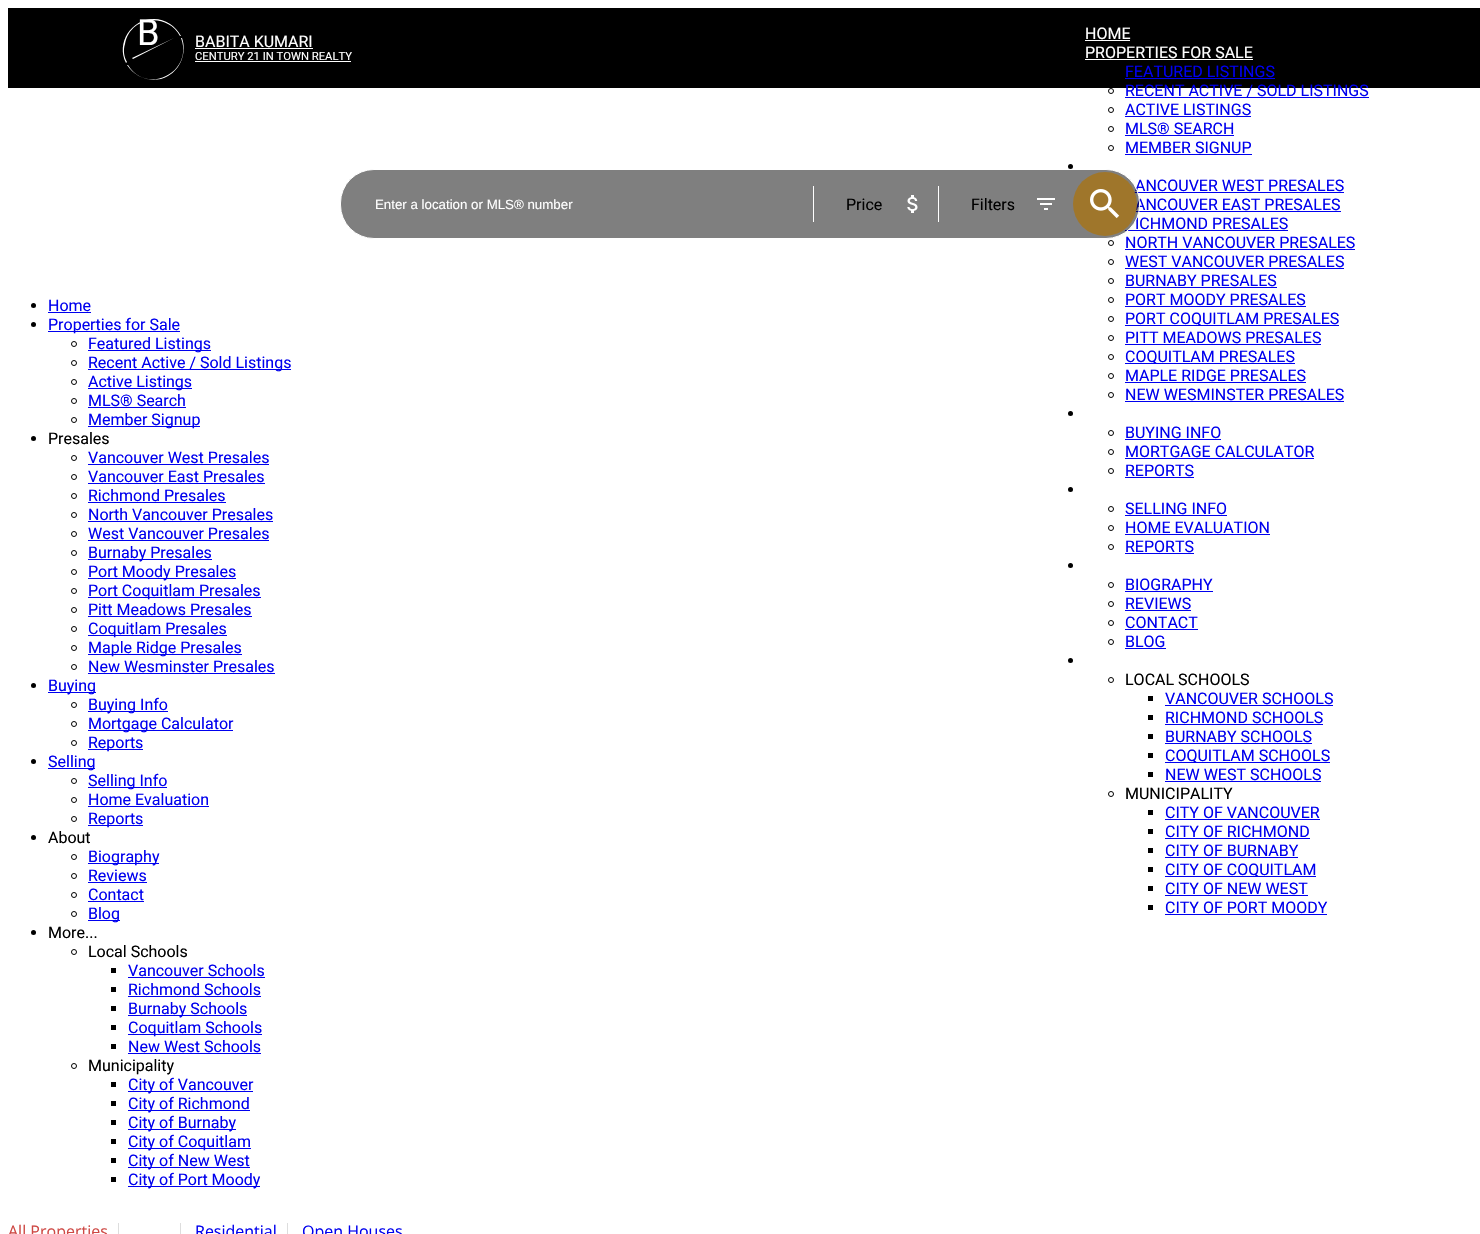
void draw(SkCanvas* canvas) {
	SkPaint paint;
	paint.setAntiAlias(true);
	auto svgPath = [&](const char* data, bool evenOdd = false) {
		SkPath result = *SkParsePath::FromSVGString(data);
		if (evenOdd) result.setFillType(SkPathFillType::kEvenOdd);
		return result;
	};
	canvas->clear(0xffffffff);
	paint.setColor(0xff000000);
	canvas->drawRect(SkRect::MakeXYWH(8, 8, 1472, 80), paint);
	paint.setColor(0xffffffff);
	canvas->drawPath(svgPath("M132 58L174 38L133 59Z"), paint);
	canvas->drawPath(svgPath("M154 19C131 19 116 43 126 63L127 62C124 57 123 50 125 44C130 16 167 12 180 36H181C176 26 165 19 154 19ZM128 65C147 96 194 72 181 38H182C187 52 181 69 168 76C154 84 136 79 127 65Z", true), paint);
	SkFont f1(fontMgr->matchFamilyStyle("Roboto", SkFontStyle::Normal()), 36);
	f1.setSubpixel(true);
	canvas->drawString("B", 137, 45, f1, paint);
	SkFont f2(fontMgr->matchFamilyStyle("Roboto", SkFontStyle::Normal()), 16);
	f2.setSubpixel(true);
	canvas->drawString("BABITA KUMARI", 195, 47, f2, paint);
	canvas->drawRect(SkRect::MakeXYWH(195, 48, 118, 1), paint);
	SkFont f3(fontMgr->matchFamilyStyle("Roboto", SkFontStyle::Normal()), 11.25);
	f3.setSubpixel(true);
	canvas->drawString("CENTURY 21 IN TOWN REALTY", 195, 60, f3, paint);
	canvas->drawRect(SkRect::MakeXYWH(195, 61, 156, 1), paint);
	canvas->drawString("HOME", 1085, 39, f2, paint);
	canvas->drawRect(SkRect::MakeXYWH(1085, 40, 45, 1), paint);
	canvas->drawString("PROPERTIES FOR SALE", 1085, 58, f2, paint);
	canvas->drawRect(SkRect::MakeXYWH(1085, 59, 168, 1), paint);
	paint.setColor(0xff0000ee);
	canvas->drawString("FEATURED LISTINGS", 1125, 77, f2, paint);
	canvas->drawRect(SkRect::MakeXYWH(1125, 78, 150, 1), paint);
	paint.setStroke(true);
	paint.setStrokeWidth(1);
	paint.setColor(0xff000000);
	canvas->drawCircle(1111, 91, 2.5, paint);
	paint.setStroke(false);
	paint.setColor(0xff0000ee);
	canvas->drawString("RECENT ACTIVE / SOLD LISTINGS", 1125, 96, f2, paint);
	canvas->drawRect(SkRect::MakeXYWH(1125, 97, 244, 1), paint);
	paint.setStroke(true);
	paint.setColor(0xff000000);
	canvas->drawCircle(1111, 110, 2.5, paint);
	paint.setStroke(false);
	paint.setColor(0xff0000ee);
	canvas->drawString("ACTIVE LISTINGS", 1125, 115, f2, paint);
	canvas->drawRect(SkRect::MakeXYWH(1125, 116, 126, 1), paint);
	paint.setStroke(true);
	paint.setColor(0xff000000);
	canvas->drawCircle(1111, 129, 2.5, paint);
	paint.setStroke(false);
	paint.setColor(0xff0000ee);
	canvas->drawString("MLS® SEARCH", 1125, 134, f2, paint);
	canvas->drawRect(SkRect::MakeXYWH(1125, 135, 109, 1), paint);
	paint.setStroke(true);
	paint.setColor(0xff000000);
	canvas->drawCircle(1111, 148, 2.5, paint);
	paint.setStroke(false);
	paint.setColor(0xff0000ee);
	canvas->drawString("MEMBER SIGNUP", 1125, 153, f2, paint);
	canvas->drawRect(SkRect::MakeXYWH(1125, 154, 127, 1), paint);
	paint.setColor(0xff000000);
	canvas->drawCircle(1070.5, 166.5, 2.5, paint);
	paint.setColor(0xff0000ee);
	canvas->drawString("ANCOUVER WEST PRESALES", 1135, 191, f2, paint);
	canvas->drawRect(SkRect::MakeXYWH(1134, 192, 210, 1), paint);
	canvas->drawString("ANCOUVER EAST PRESALES", 1135, 210, f2, paint);
	canvas->drawRect(SkRect::MakeXYWH(1135, 211, 206, 1), paint);
	canvas->drawString("ICHMOND PRESALES", 1135, 229, f2, paint);
	canvas->drawRect(SkRect::MakeXYWH(1125, 230, 163, 1), paint);
	paint.setStroke(true);
	paint.setColor(0xff000000);
	canvas->drawCircle(1111, 243, 2.5, paint);
	paint.setStroke(false);
	paint.setColor(0xff0000ee);
	canvas->drawString("NORTH VANCOUVER PRESALES", 1125, 248, f2, paint);
	canvas->drawRect(SkRect::MakeXYWH(1125, 249, 230, 1), paint);
	paint.setStroke(true);
	paint.setColor(0xff000000);
	canvas->drawCircle(1111, 262, 2.5, paint);
	paint.setStroke(false);
	paint.setColor(0xff0000ee);
	canvas->drawString("WEST VANCOUVER PRESALES", 1125, 267, f2, paint);
	canvas->drawRect(SkRect::MakeXYWH(1125, 268, 219, 1), paint);
	paint.setStroke(true);
	paint.setColor(0xff000000);
	canvas->drawCircle(1111, 281, 2.5, paint);
	paint.setStroke(false);
	paint.setColor(0xff0000ee);
	canvas->drawString("BURNABY PRESALES", 1125, 286, f2, paint);
	canvas->drawRect(SkRect::MakeXYWH(1125, 287, 152, 1), paint);
	paint.setStroke(true);
	paint.setColor(0xff000000);
	canvas->drawCircle(1111, 300, 2.5, paint);
	paint.setStroke(false);
	paint.setColor(0xff0000ee);
	canvas->drawString("PORT MOODY PRESALES", 1125, 305, f2, paint);
	canvas->drawRect(SkRect::MakeXYWH(1125, 306, 181, 1), paint);
	paint.setStroke(true);
	paint.setColor(0xff000000);
	canvas->drawCircle(1111, 319, 2.5, paint);
	paint.setStroke(false);
	paint.setColor(0xff0000ee);
	canvas->drawRect(SkRect::MakeXYWH(1125, 325, 214, 1), paint);
	canvas->drawString("PORT COQUITLAM PRESALES", 1125, 324, f2, paint);
	paint.setStroke(true);
	paint.setColor(0xff000000);
	canvas->drawCircle(1111, 338, 2.5, paint);
	paint.setStroke(false);
	paint.setColor(0xff0000ee);
	canvas->drawString("PITT MEADOWS PRESALES", 1125, 343, f2, paint);
	canvas->drawRect(SkRect::MakeXYWH(1125, 344, 196, 1), paint);
	paint.setStroke(true);
	paint.setColor(0xff000000);
	canvas->drawCircle(1111, 357, 2.5, paint);
	paint.setStroke(false);
	paint.setColor(0xff0000ee);
	canvas->drawRect(SkRect::MakeXYWH(1125, 363, 170, 1), paint);
	canvas->drawString("COQUITLAM PRESALES", 1125, 362, f2, paint);
	paint.setStroke(true);
	paint.setColor(0xff000000);
	canvas->drawCircle(1111, 376, 2.5, paint);
	paint.setStroke(false);
	paint.setColor(0xff0000ee);
	canvas->drawString("MAPLE RIDGE PRESALES", 1125, 381, f2, paint);
	canvas->drawRect(SkRect::MakeXYWH(1125, 382, 181, 1), paint);
	paint.setStroke(true);
	paint.setColor(0xff000000);
	canvas->drawCircle(1111, 395, 2.5, paint);
	paint.setStroke(false);
	paint.setColor(0xff0000ee);
	canvas->drawString("NEW WESMINSTER PRESALES", 1125, 400, f2, paint);
	canvas->drawRect(SkRect::MakeXYWH(1125, 401, 219, 1), paint);
	paint.setColor(0xff000000);
	canvas->drawCircle(1070.5, 413.5, 2.5, paint);
	paint.setStroke(true);
	canvas->drawCircle(1111, 433, 2.5, paint);
	paint.setStroke(false);
	paint.setColor(0xff0000ee);
	canvas->drawString("BUYING INFO", 1125, 438, f2, paint);
	canvas->drawRect(SkRect::MakeXYWH(1125, 439, 96, 1), paint);
	paint.setStroke(true);
	paint.setColor(0xff000000);
	canvas->drawCircle(1111, 452, 2.5, paint);
	paint.setStroke(false);
	paint.setColor(0xff0000ee);
	canvas->drawString("MORTGAGE CALCULATOR", 1125, 457, f2, paint);
	canvas->drawRect(SkRect::MakeXYWH(1125, 458, 189, 1), paint);
	paint.setStroke(true);
	paint.setColor(0xff000000);
	canvas->drawCircle(1111, 471, 2.5, paint);
	paint.setStroke(false);
	paint.setColor(0xff0000ee);
	canvas->drawString("REPORTS", 1125, 476, f2, paint);
	canvas->drawRect(SkRect::MakeXYWH(1125, 477, 69, 1), paint);
	paint.setColor(0xff000000);
	canvas->drawCircle(1070.5, 489.5, 2.5, paint);
	paint.setStroke(true);
	canvas->drawCircle(1111, 509, 2.5, paint);
	paint.setStroke(false);
	paint.setColor(0xff0000ee);
	canvas->drawString("SELLING INFO", 1125, 514, f2, paint);
	canvas->drawRect(SkRect::MakeXYWH(1125, 515, 102, 1), paint);
	paint.setStroke(true);
	paint.setColor(0xff000000);
	canvas->drawCircle(1111, 528, 2.5, paint);
	paint.setStroke(false);
	paint.setColor(0xff0000ee);
	canvas->drawString("HOME EVALUATION", 1125, 533, f2, paint);
	canvas->drawRect(SkRect::MakeXYWH(1125, 534, 145, 1), paint);
	paint.setStroke(true);
	paint.setColor(0xff000000);
	canvas->drawCircle(1111, 547, 2.5, paint);
	paint.setStroke(false);
	paint.setColor(0xff0000ee);
	canvas->drawString("REPORTS", 1125, 552, f2, paint);
	canvas->drawRect(SkRect::MakeXYWH(1125, 553, 69, 1), paint);
	paint.setColor(0xff000000);
	canvas->drawCircle(1070.5, 565.5, 2.5, paint);
	paint.setStroke(true);
	canvas->drawCircle(1111, 585, 2.5, paint);
	paint.setStroke(false);
	paint.setColor(0xff0000ee);
	canvas->drawString("BIOGRAPHY", 1125, 590, f2, paint);
	canvas->drawRect(SkRect::MakeXYWH(1125, 591, 88, 1), paint);
	paint.setStroke(true);
	paint.setColor(0xff000000);
	canvas->drawCircle(1111, 604, 2.5, paint);
	paint.setStroke(false);
	paint.setColor(0xff0000ee);
	canvas->drawString("REVIEWS", 1125, 609, f2, paint);
	canvas->drawRect(SkRect::MakeXYWH(1125, 610, 66, 1), paint);
	paint.setStroke(true);
	paint.setColor(0xff000000);
	canvas->drawCircle(1111, 623, 2.5, paint);
	paint.setStroke(false);
	paint.setColor(0xff0000ee);
	canvas->drawString("CONTACT", 1125, 628, f2, paint);
	canvas->drawRect(SkRect::MakeXYWH(1125, 629, 73, 1), paint);
	paint.setStroke(true);
	paint.setColor(0xff000000);
	canvas->drawCircle(1111, 642, 2.5, paint);
	paint.setStroke(false);
	paint.setColor(0xff0000ee);
	canvas->drawString("BLOG", 1125, 647, f2, paint);
	canvas->drawRect(SkRect::MakeXYWH(1125, 648, 41, 1), paint);
	paint.setColor(0xff000000);
	canvas->drawCircle(1070.5, 660.5, 2.5, paint);
	paint.setStroke(true);
	canvas->drawCircle(1111, 680, 2.5, paint);
	paint.setStroke(false);
	canvas->drawString("LOCAL SCHOOLS", 1125, 685, f2, paint);
	canvas->drawRect(SkRect::MakeXYWH(1148, 696, 5, 5), paint);
	paint.setColor(0xff0000ee);
	canvas->drawString("VANCOUVER SCHOOLS", 1165, 704, f2, paint);
	canvas->drawRect(SkRect::MakeXYWH(1165, 705, 168, 1), paint);
	paint.setColor(0xff000000);
	canvas->drawRect(SkRect::MakeXYWH(1148, 715, 5, 5), paint);
	paint.setColor(0xff0000ee);
	canvas->drawString("RICHMOND SCHOOLS", 1165, 723, f2, paint);
	canvas->drawRect(SkRect::MakeXYWH(1165, 724, 158, 1), paint);
	paint.setColor(0xff000000);
	canvas->drawRect(SkRect::MakeXYWH(1148, 734, 5, 5), paint);
	paint.setColor(0xff0000ee);
	canvas->drawString("BURNABY SCHOOLS", 1165, 742, f2, paint);
	canvas->drawRect(SkRect::MakeXYWH(1165, 743, 147, 1), paint);
	paint.setColor(0xff000000);
	canvas->drawRect(SkRect::MakeXYWH(1148, 753, 5, 5), paint);
	paint.setColor(0xff0000ee);
	canvas->drawRect(SkRect::MakeXYWH(1165, 762, 165, 1), paint);
	canvas->drawString("COQUITLAM SCHOOLS", 1165, 761, f2, paint);
	paint.setColor(0xff000000);
	canvas->drawRect(SkRect::MakeXYWH(1148, 772, 5, 5), paint);
	paint.setColor(0xff0000ee);
	canvas->drawString("NEW WEST SCHOOLS", 1165, 780, f2, paint);
	canvas->drawRect(SkRect::MakeXYWH(1165, 781, 156, 1), paint);
	paint.setStroke(true);
	paint.setColor(0xff000000);
	canvas->drawCircle(1111, 794, 2.5, paint);
	paint.setStroke(false);
	canvas->drawString("MUNICIPALITY", 1125, 799, f2, paint);
	canvas->drawRect(SkRect::MakeXYWH(1148, 810, 5, 5), paint);
	paint.setColor(0xff0000ee);
	canvas->drawString("CITY OF VANCOUVER", 1165, 818, f2, paint);
	canvas->drawRect(SkRect::MakeXYWH(1165, 819, 155, 1), paint);
	paint.setColor(0xff000000);
	canvas->drawRect(SkRect::MakeXYWH(1148, 829, 5, 5), paint);
	paint.setColor(0xff0000ee);
	canvas->drawString("CITY OF RICHMOND", 1165, 837, f2, paint);
	canvas->drawRect(SkRect::MakeXYWH(1165, 838, 145, 1), paint);
	paint.setColor(0xff000000);
	canvas->drawRect(SkRect::MakeXYWH(1148, 848, 5, 5), paint);
	paint.setColor(0xff0000ee);
	canvas->drawString("CITY OF BURNABY", 1165, 856, f2, paint);
	canvas->drawRect(SkRect::MakeXYWH(1165, 857, 133, 1), paint);
	paint.setColor(0xff000000);
	canvas->drawRect(SkRect::MakeXYWH(1148, 867, 5, 5), paint);
	paint.setColor(0xff0000ee);
	canvas->drawRect(SkRect::MakeXYWH(1165, 876, 151, 1), paint);
	canvas->drawString("CITY OF COQUITLAM", 1165, 875, f2, paint);
	paint.setColor(0xff000000);
	canvas->drawRect(SkRect::MakeXYWH(1148, 886, 5, 5), paint);
	paint.setColor(0xff0000ee);
	canvas->drawString("CITY OF NEW WEST", 1165, 894, f2, paint);
	canvas->drawRect(SkRect::MakeXYWH(1165, 895, 143, 1), paint);
	paint.setColor(0xff000000);
	canvas->drawRect(SkRect::MakeXYWH(1148, 905, 5, 5), paint);
	paint.setColor(0xff0000ee);
	canvas->drawString("CITY OF PORT MOODY", 1165, 913, f2, paint);
	canvas->drawRect(SkRect::MakeXYWH(1165, 914, 162, 1), paint);
	paint.setColor(0x80000000);
	canvas->drawRoundRect(SkRect::MakeXYWH(340.5, 169.5, 799, 69), 33.5, 33.5, paint);
	paint.setStroke(true);
	paint.setColor(0xffffffff);
	canvas->drawRoundRect(SkRect::MakeXYWH(340.5, 169.5, 799, 69), 33.5, 33.5, paint);
	SkFont f4(fontMgr->matchFamilyStyle("Liberation Sans", SkFontStyle::Normal()), 13.3);
	f4.setSubpixel(true);
	paint.setStroke(false);
	canvas->drawString("Enter a location or MLS® number", 375, 209, f4, paint);
	canvas->drawImageRect(SkImages::DeferredFromEncodedData(SkData::MakeFromFileName("img1.png")), SkRect::MakeXYWH(907, 195, 11, 18), SkSamplingOptions());
	canvas->drawRect(SkRect::MakeXYWH(813, 186, 1, 36), paint);
	paint.setColor(0xff000000);
	canvas->drawString("Price", 846, 210, f2, paint);
	canvas->drawImageRect(SkImages::DeferredFromEncodedData(SkData::MakeFromFileName("img2.png")), SkRect::MakeXYWH(1037, 198, 18, 12), SkSamplingOptions());
	paint.setColor(0xffffffff);
	canvas->drawRect(SkRect::MakeXYWH(938, 186, 1, 36), paint);
	paint.setColor(0xff000000);
	canvas->drawString("Filters", 971, 210, f2, paint);
	paint.setColor(0xff9f762b);
	canvas->drawCircle(1105, 204, 32, paint);
	canvas->drawImageRect(SkImages::DeferredFromEncodedData(SkData::MakeFromFileName("img3.png")), SkRect::MakeXYWH(1090, 189, 30, 30), SkSamplingOptions());
	paint.setColor(0xff000000);
	canvas->drawCircle(33.5, 305.5, 2.5, paint);
	paint.setColor(0xff0000ee);
	canvas->drawString("Home", 48, 311, f2, paint);
	canvas->drawRect(SkRect::MakeXYWH(48, 312, 43, 1), paint);
	paint.setColor(0xff000000);
	canvas->drawCircle(33.5, 324.5, 2.5, paint);
	paint.setColor(0xff0000ee);
	canvas->drawRect(SkRect::MakeXYWH(48, 331, 132, 1), paint);
	canvas->drawString("Properties for Sale", 48, 330, f2, paint);
	paint.setStroke(true);
	paint.setColor(0xff000000);
	canvas->drawCircle(74, 344, 2.5, paint);
	paint.setStroke(false);
	paint.setColor(0xff0000ee);
	canvas->drawRect(SkRect::MakeXYWH(88, 350, 123, 1), paint);
	canvas->drawString("Featured Listings", 88, 349, f2, paint);
	paint.setStroke(true);
	paint.setColor(0xff000000);
	canvas->drawCircle(74, 363, 2.5, paint);
	paint.setStroke(false);
	paint.setColor(0xff0000ee);
	canvas->drawRect(SkRect::MakeXYWH(88, 369, 203, 1), paint);
	canvas->drawString("Recent Active / Sold Listings", 88, 368, f2, paint);
	paint.setStroke(true);
	paint.setColor(0xff000000);
	canvas->drawCircle(74, 382, 2.5, paint);
	paint.setStroke(false);
	paint.setColor(0xff0000ee);
	canvas->drawRect(SkRect::MakeXYWH(88, 388, 104, 1), paint);
	canvas->drawString("Active Listings", 88, 387, f2, paint);
	paint.setStroke(true);
	paint.setColor(0xff000000);
	canvas->drawCircle(74, 401, 2.5, paint);
	paint.setStroke(false);
	paint.setColor(0xff0000ee);
	canvas->drawString("MLS® Search", 88, 406, f2, paint);
	canvas->drawRect(SkRect::MakeXYWH(88, 407, 98, 1), paint);
	paint.setStroke(true);
	paint.setColor(0xff000000);
	canvas->drawCircle(74, 420, 2.5, paint);
	paint.setStroke(false);
	paint.setColor(0xff0000ee);
	canvas->drawRect(SkRect::MakeXYWH(88, 426, 112, 1), paint);
	canvas->drawString("Member Signup", 88, 425, f2, paint);
	paint.setColor(0xff000000);
	canvas->drawCircle(33.5, 438.5, 2.5, paint);
	canvas->drawString("Presales", 48, 444, f2, paint);
	paint.setStroke(true);
	canvas->drawCircle(74, 458, 2.5, paint);
	paint.setStroke(false);
	paint.setColor(0xff0000ee);
	canvas->drawString("Vancouver West Presales", 88, 463, f2, paint);
	canvas->drawRect(SkRect::MakeXYWH(88, 464, 181, 1), paint);
	paint.setStroke(true);
	paint.setColor(0xff000000);
	canvas->drawCircle(74, 477, 2.5, paint);
	paint.setStroke(false);
	paint.setColor(0xff0000ee);
	canvas->drawString("Vancouver East Presales", 88, 482, f2, paint);
	canvas->drawRect(SkRect::MakeXYWH(88, 483, 177, 1), paint);
	paint.setStroke(true);
	paint.setColor(0xff000000);
	canvas->drawCircle(74, 496, 2.5, paint);
	paint.setStroke(false);
	paint.setColor(0xff0000ee);
	canvas->drawString("Richmond Presales", 88, 501, f2, paint);
	canvas->drawRect(SkRect::MakeXYWH(88, 502, 138, 1), paint);
	paint.setStroke(true);
	paint.setColor(0xff000000);
	canvas->drawCircle(74, 515, 2.5, paint);
	paint.setStroke(false);
	paint.setColor(0xff0000ee);
	canvas->drawString("North Vancouver Presales", 88, 520, f2, paint);
	canvas->drawRect(SkRect::MakeXYWH(88, 521, 185, 1), paint);
	paint.setStroke(true);
	paint.setColor(0xff000000);
	canvas->drawCircle(74, 534, 2.5, paint);
	paint.setStroke(false);
	paint.setColor(0xff0000ee);
	canvas->drawString("West Vancouver Presales", 88, 539, f2, paint);
	canvas->drawRect(SkRect::MakeXYWH(88, 540, 181, 1), paint);
	paint.setStroke(true);
	paint.setColor(0xff000000);
	canvas->drawCircle(74, 553, 2.5, paint);
	paint.setStroke(false);
	paint.setColor(0xff0000ee);
	canvas->drawRect(SkRect::MakeXYWH(88, 559, 124, 1), paint);
	canvas->drawString("Burnaby Presales", 88, 558, f2, paint);
	paint.setStroke(true);
	paint.setColor(0xff000000);
	canvas->drawCircle(74, 572, 2.5, paint);
	paint.setStroke(false);
	paint.setColor(0xff0000ee);
	canvas->drawRect(SkRect::MakeXYWH(88, 578, 148, 1), paint);
	canvas->drawString("Port Moody Presales", 88, 577, f2, paint);
	paint.setStroke(true);
	paint.setColor(0xff000000);
	canvas->drawCircle(74, 591, 2.5, paint);
	paint.setStroke(false);
	paint.setColor(0xff0000ee);
	canvas->drawRect(SkRect::MakeXYWH(88, 597, 173, 1), paint);
	canvas->drawString("Port Coquitlam Presales", 88, 596, f2, paint);
	paint.setStroke(true);
	paint.setColor(0xff000000);
	canvas->drawCircle(74, 610, 2.5, paint);
	paint.setStroke(false);
	paint.setColor(0xff0000ee);
	canvas->drawString("Pitt Meadows Presales", 88, 615, f2, paint);
	canvas->drawRect(SkRect::MakeXYWH(88, 616, 164, 1), paint);
	paint.setStroke(true);
	paint.setColor(0xff000000);
	canvas->drawCircle(74, 629, 2.5, paint);
	paint.setStroke(false);
	paint.setColor(0xff0000ee);
	canvas->drawRect(SkRect::MakeXYWH(88, 635, 139, 1), paint);
	canvas->drawString("Coquitlam Presales", 88, 634, f2, paint);
	paint.setStroke(true);
	paint.setColor(0xff000000);
	canvas->drawCircle(74, 648, 2.5, paint);
	paint.setStroke(false);
	paint.setColor(0xff0000ee);
	canvas->drawRect(SkRect::MakeXYWH(88, 654, 154, 1), paint);
	canvas->drawString("Maple Ridge Presales", 88, 653, f2, paint);
	paint.setStroke(true);
	paint.setColor(0xff000000);
	canvas->drawCircle(74, 667, 2.5, paint);
	paint.setStroke(false);
	paint.setColor(0xff0000ee);
	canvas->drawString("New Wesminster Presales", 88, 672, f2, paint);
	canvas->drawRect(SkRect::MakeXYWH(88, 673, 187, 1), paint);
	paint.setColor(0xff000000);
	canvas->drawCircle(33.5, 685.5, 2.5, paint);
	paint.setColor(0xff0000ee);
	canvas->drawRect(SkRect::MakeXYWH(48, 692, 48, 1), paint);
	canvas->drawString("Buying", 48, 691, f2, paint);
	paint.setStroke(true);
	paint.setColor(0xff000000);
	canvas->drawCircle(74, 705, 2.5, paint);
	paint.setStroke(false);
	paint.setColor(0xff0000ee);
	canvas->drawRect(SkRect::MakeXYWH(88, 711, 80, 1), paint);
	canvas->drawString("Buying Info", 88, 710, f2, paint);
	paint.setStroke(true);
	paint.setColor(0xff000000);
	canvas->drawCircle(74, 724, 2.5, paint);
	paint.setStroke(false);
	paint.setColor(0xff0000ee);
	canvas->drawRect(SkRect::MakeXYWH(88, 730, 145, 1), paint);
	canvas->drawString("Mortgage Calculator", 88, 729, f2, paint);
	paint.setStroke(true);
	paint.setColor(0xff000000);
	canvas->drawCircle(74, 743, 2.5, paint);
	paint.setStroke(false);
	paint.setColor(0xff0000ee);
	canvas->drawRect(SkRect::MakeXYWH(88, 749, 55, 1), paint);
	canvas->drawString("Reports", 88, 748, f2, paint);
	paint.setColor(0xff000000);
	canvas->drawCircle(33.5, 761.5, 2.5, paint);
	paint.setColor(0xff0000ee);
	canvas->drawRect(SkRect::MakeXYWH(48, 768, 47, 1), paint);
	canvas->drawString("Selling", 48, 767, f2, paint);
	paint.setStroke(true);
	paint.setColor(0xff000000);
	canvas->drawCircle(74, 781, 2.5, paint);
	paint.setStroke(false);
	paint.setColor(0xff0000ee);
	canvas->drawRect(SkRect::MakeXYWH(88, 787, 79, 1), paint);
	canvas->drawString("Selling Info", 88, 786, f2, paint);
	paint.setStroke(true);
	paint.setColor(0xff000000);
	canvas->drawCircle(74, 800, 2.5, paint);
	paint.setStroke(false);
	paint.setColor(0xff0000ee);
	canvas->drawString("Home Evaluation", 88, 805, f2, paint);
	canvas->drawRect(SkRect::MakeXYWH(88, 806, 121, 1), paint);
	paint.setStroke(true);
	paint.setColor(0xff000000);
	canvas->drawCircle(74, 819, 2.5, paint);
	paint.setStroke(false);
	paint.setColor(0xff0000ee);
	canvas->drawRect(SkRect::MakeXYWH(88, 825, 55, 1), paint);
	canvas->drawString("Reports", 88, 824, f2, paint);
	paint.setColor(0xff000000);
	canvas->drawCircle(33.5, 837.5, 2.5, paint);
	canvas->drawString("About", 48, 843, f2, paint);
	paint.setStroke(true);
	canvas->drawCircle(74, 857, 2.5, paint);
	paint.setStroke(false);
	paint.setColor(0xff0000ee);
	canvas->drawRect(SkRect::MakeXYWH(88, 863, 71, 1), paint);
	canvas->drawString("Biography", 88, 862, f2, paint);
	paint.setStroke(true);
	paint.setColor(0xff000000);
	canvas->drawCircle(74, 876, 2.5, paint);
	paint.setStroke(false);
	paint.setColor(0xff0000ee);
	canvas->drawString("Reviews", 88, 881, f2, paint);
	canvas->drawRect(SkRect::MakeXYWH(88, 882, 59, 1), paint);
	paint.setStroke(true);
	paint.setColor(0xff000000);
	canvas->drawCircle(74, 895, 2.5, paint);
	paint.setStroke(false);
	paint.setColor(0xff0000ee);
	canvas->drawString("Contact", 88, 900, f2, paint);
	canvas->drawRect(SkRect::MakeXYWH(88, 901, 56, 1), paint);
	paint.setStroke(true);
	paint.setColor(0xff000000);
	canvas->drawCircle(74, 914, 2.5, paint);
	paint.setStroke(false);
	paint.setColor(0xff0000ee);
	canvas->drawRect(SkRect::MakeXYWH(88, 920, 32, 1), paint);
	canvas->drawString("Blog", 88, 919, f2, paint);
	paint.setColor(0xff000000);
	canvas->drawCircle(33.5, 932.5, 2.5, paint);
	canvas->drawString("More...", 48, 938, f2, paint);
	paint.setStroke(true);
	canvas->drawCircle(74, 952, 2.5, paint);
	paint.setStroke(false);
	canvas->drawString("Local Schools", 88, 957, f2, paint);
	canvas->drawRect(SkRect::MakeXYWH(111, 968, 5, 5), paint);
	paint.setColor(0xff0000ee);
	canvas->drawString("Vancouver Schools", 128, 976, f2, paint);
	canvas->drawRect(SkRect::MakeXYWH(128, 977, 137, 1), paint);
	paint.setColor(0xff000000);
	canvas->drawRect(SkRect::MakeXYWH(111, 987, 5, 5), paint);
	paint.setColor(0xff0000ee);
	canvas->drawString("Richmond Schools", 128, 995, f2, paint);
	canvas->drawRect(SkRect::MakeXYWH(128, 996, 133, 1), paint);
	paint.setColor(0xff000000);
	canvas->drawRect(SkRect::MakeXYWH(111, 1006, 5, 5), paint);
	paint.setColor(0xff0000ee);
	canvas->drawRect(SkRect::MakeXYWH(128, 1015, 119, 1), paint);
	canvas->drawString("Burnaby Schools", 128, 1014, f2, paint);
	paint.setColor(0xff000000);
	canvas->drawRect(SkRect::MakeXYWH(111, 1025, 5, 5), paint);
	paint.setColor(0xff0000ee);
	canvas->drawRect(SkRect::MakeXYWH(128, 1034, 134, 1), paint);
	canvas->drawString("Coquitlam Schools", 128, 1033, f2, paint);
	paint.setColor(0xff000000);
	canvas->drawRect(SkRect::MakeXYWH(111, 1044, 5, 5), paint);
	paint.setColor(0xff0000ee);
	canvas->drawString("New West Schools", 128, 1052, f2, paint);
	canvas->drawRect(SkRect::MakeXYWH(128, 1053, 133, 1), paint);
	paint.setStroke(true);
	paint.setColor(0xff000000);
	canvas->drawCircle(74, 1066, 2.5, paint);
	paint.setStroke(false);
	canvas->drawString("Municipality", 88, 1071, f2, paint);
	canvas->drawRect(SkRect::MakeXYWH(111, 1082, 5, 5), paint);
	paint.setColor(0xff0000ee);
	canvas->drawRect(SkRect::MakeXYWH(128, 1091, 125, 1), paint);
	canvas->drawString("City of Vancouver", 128, 1090, f2, paint);
	paint.setColor(0xff000000);
	canvas->drawRect(SkRect::MakeXYWH(111, 1101, 5, 5), paint);
	paint.setColor(0xff0000ee);
	canvas->drawRect(SkRect::MakeXYWH(128, 1110, 122, 1), paint);
	canvas->drawString("City of Richmond", 128, 1109, f2, paint);
	paint.setColor(0xff000000);
	canvas->drawRect(SkRect::MakeXYWH(111, 1120, 5, 5), paint);
	paint.setColor(0xff0000ee);
	canvas->drawRect(SkRect::MakeXYWH(128, 1129, 108, 1), paint);
	canvas->drawString("City of Burnaby", 128, 1128, f2, paint);
	paint.setColor(0xff000000);
	canvas->drawRect(SkRect::MakeXYWH(111, 1139, 5, 5), paint);
	paint.setColor(0xff0000ee);
	canvas->drawRect(SkRect::MakeXYWH(128, 1148, 123, 1), paint);
	canvas->drawString("City of Coquitlam", 128, 1147, f2, paint);
	paint.setColor(0xff000000);
	canvas->drawRect(SkRect::MakeXYWH(111, 1158, 5, 5), paint);
	paint.setColor(0xff0000ee);
	canvas->drawRect(SkRect::MakeXYWH(128, 1167, 122, 1), paint);
	canvas->drawString("City of New West", 128, 1166, f2, paint);
	paint.setColor(0xff000000);
	canvas->drawRect(SkRect::MakeXYWH(111, 1177, 5, 5), paint);
	paint.setColor(0xff0000ee);
	canvas->drawRect(SkRect::MakeXYWH(128, 1186, 132, 1), paint);
	canvas->drawString("City of Port Moody", 128, 1185, f2, paint);
	paint.setColor(0xffdddddd);
	canvas->drawRect(SkRect::MakeXYWH(118, 1223, 1, 11), paint);
	SkFont f5(fontMgr->matchFamilyStyle("Open Sans", SkFontStyle::Normal()), 16);
	f5.setSubpixel(true);
	paint.setColor(0xffce4844);
	canvas->drawString("All Properties", 8, 1237, f5, paint);
	paint.setColor(0xffdddddd);
	canvas->drawRect(SkRect::MakeXYWH(180, 1223, 1, 11), paint);
	canvas->drawRect(SkRect::MakeXYWH(287, 1223, 1, 11), paint);
	paint.setColor(0xff0000ee);
	canvas->drawString("Residential", 195, 1237, f5, paint);
	canvas->drawString("Open Houses", 302, 1237, f5, paint);
}
